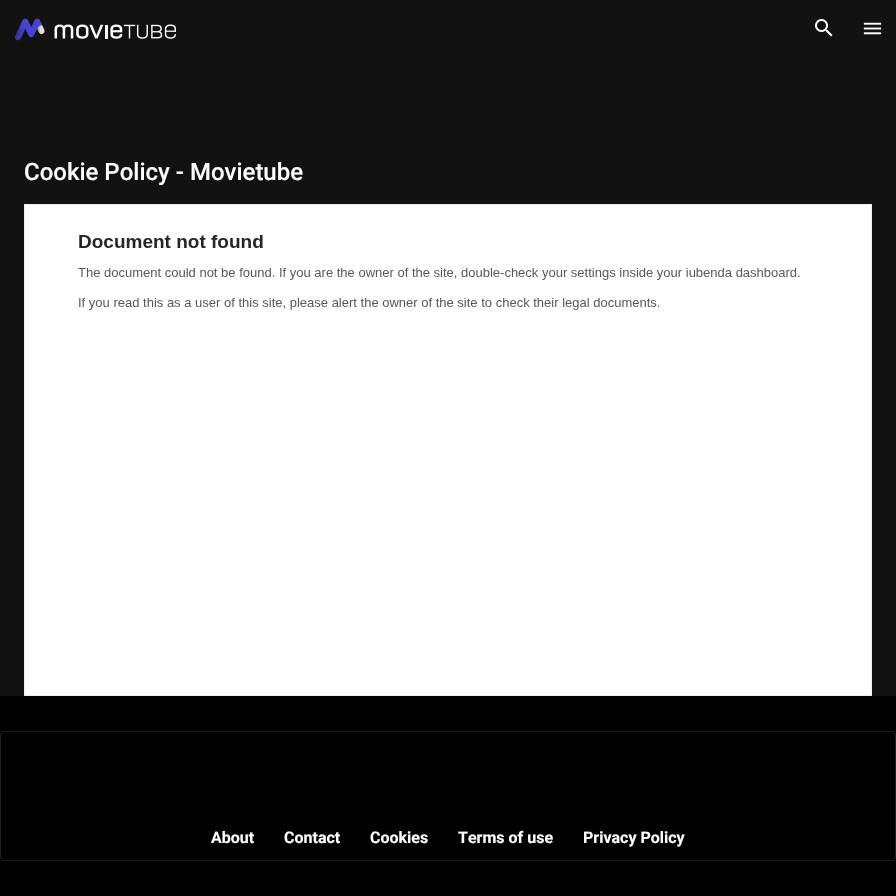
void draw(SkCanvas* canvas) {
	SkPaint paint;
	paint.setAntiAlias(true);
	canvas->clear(0xff121212);
	canvas->drawImageRect(SkImages::DeferredFromEncodedData(SkData::MakeFromFileName("img1.png")), SkRect::MakeXYWH(15, 18, 161, 23), SkSamplingOptions());
	canvas->drawImageRect(SkImages::DeferredFromEncodedData(SkData::MakeFromFileName("img2.png")), SkRect::MakeXYWH(815, 19, 18, 18), SkSamplingOptions());
	canvas->drawImageRect(SkImages::DeferredFromEncodedData(SkData::MakeFromFileName("img3.png")), SkRect::MakeXYWH(863, 22, 19, 13), SkSamplingOptions());
	SkFont f1(fontMgr->matchFamilyStyle("Roboto", SkFontStyle(500, SkFontStyle::kNormal_Width, SkFontStyle::kUpright_Slant)), 24);
	f1.setSubpixel(true);
	paint.setColor(0xffffffff);
	canvas->drawString("Cookie Policy - Movietube", 24, 180, f1, paint);
	canvas->drawRect(SkRect::MakeXYWH(24.5, 204.5, 847, 491), paint);
	paint.setStroke(true);
	paint.setStrokeWidth(1);
	paint.setColor(0xffeeeeee);
	canvas->drawRect(SkRect::MakeXYWH(24.5, 204.5, 847, 491), paint);
	canvas->drawImageRect(SkImages::DeferredFromEncodedData(SkData::MakeFromFileName("img4.png")), SkRect::MakeXYWH(78, 235, 722, 75), SkSamplingOptions());
	paint.setStroke(false);
	paint.setColor(0xff000000);
	canvas->drawRect(SkRect::MakeXYWH(0, 696, 896, 200), paint);
	paint.setStroke(true);
	paint.setColor(0xff1e1e1e);
	canvas->drawRoundRect(SkRect::MakeXYWH(0.5, 731.5, 895, 129), 3.5, 3.5, paint);
	SkFont f2(fontMgr->matchFamilyStyle("Roboto", SkFontStyle::Bold()), 16);
	f2.setSubpixel(true);
	paint.setStroke(false);
	paint.setColor(0xffffffff);
	canvas->drawString("About", 211, 843, f2, paint);
	canvas->drawString("Contact", 284, 843, f2, paint);
	canvas->drawString("Cookies", 370, 843, f2, paint);
	canvas->drawString("Terms of use", 458, 843, f2, paint);
	canvas->drawString("Privacy Policy", 583, 843, f2, paint);
}
